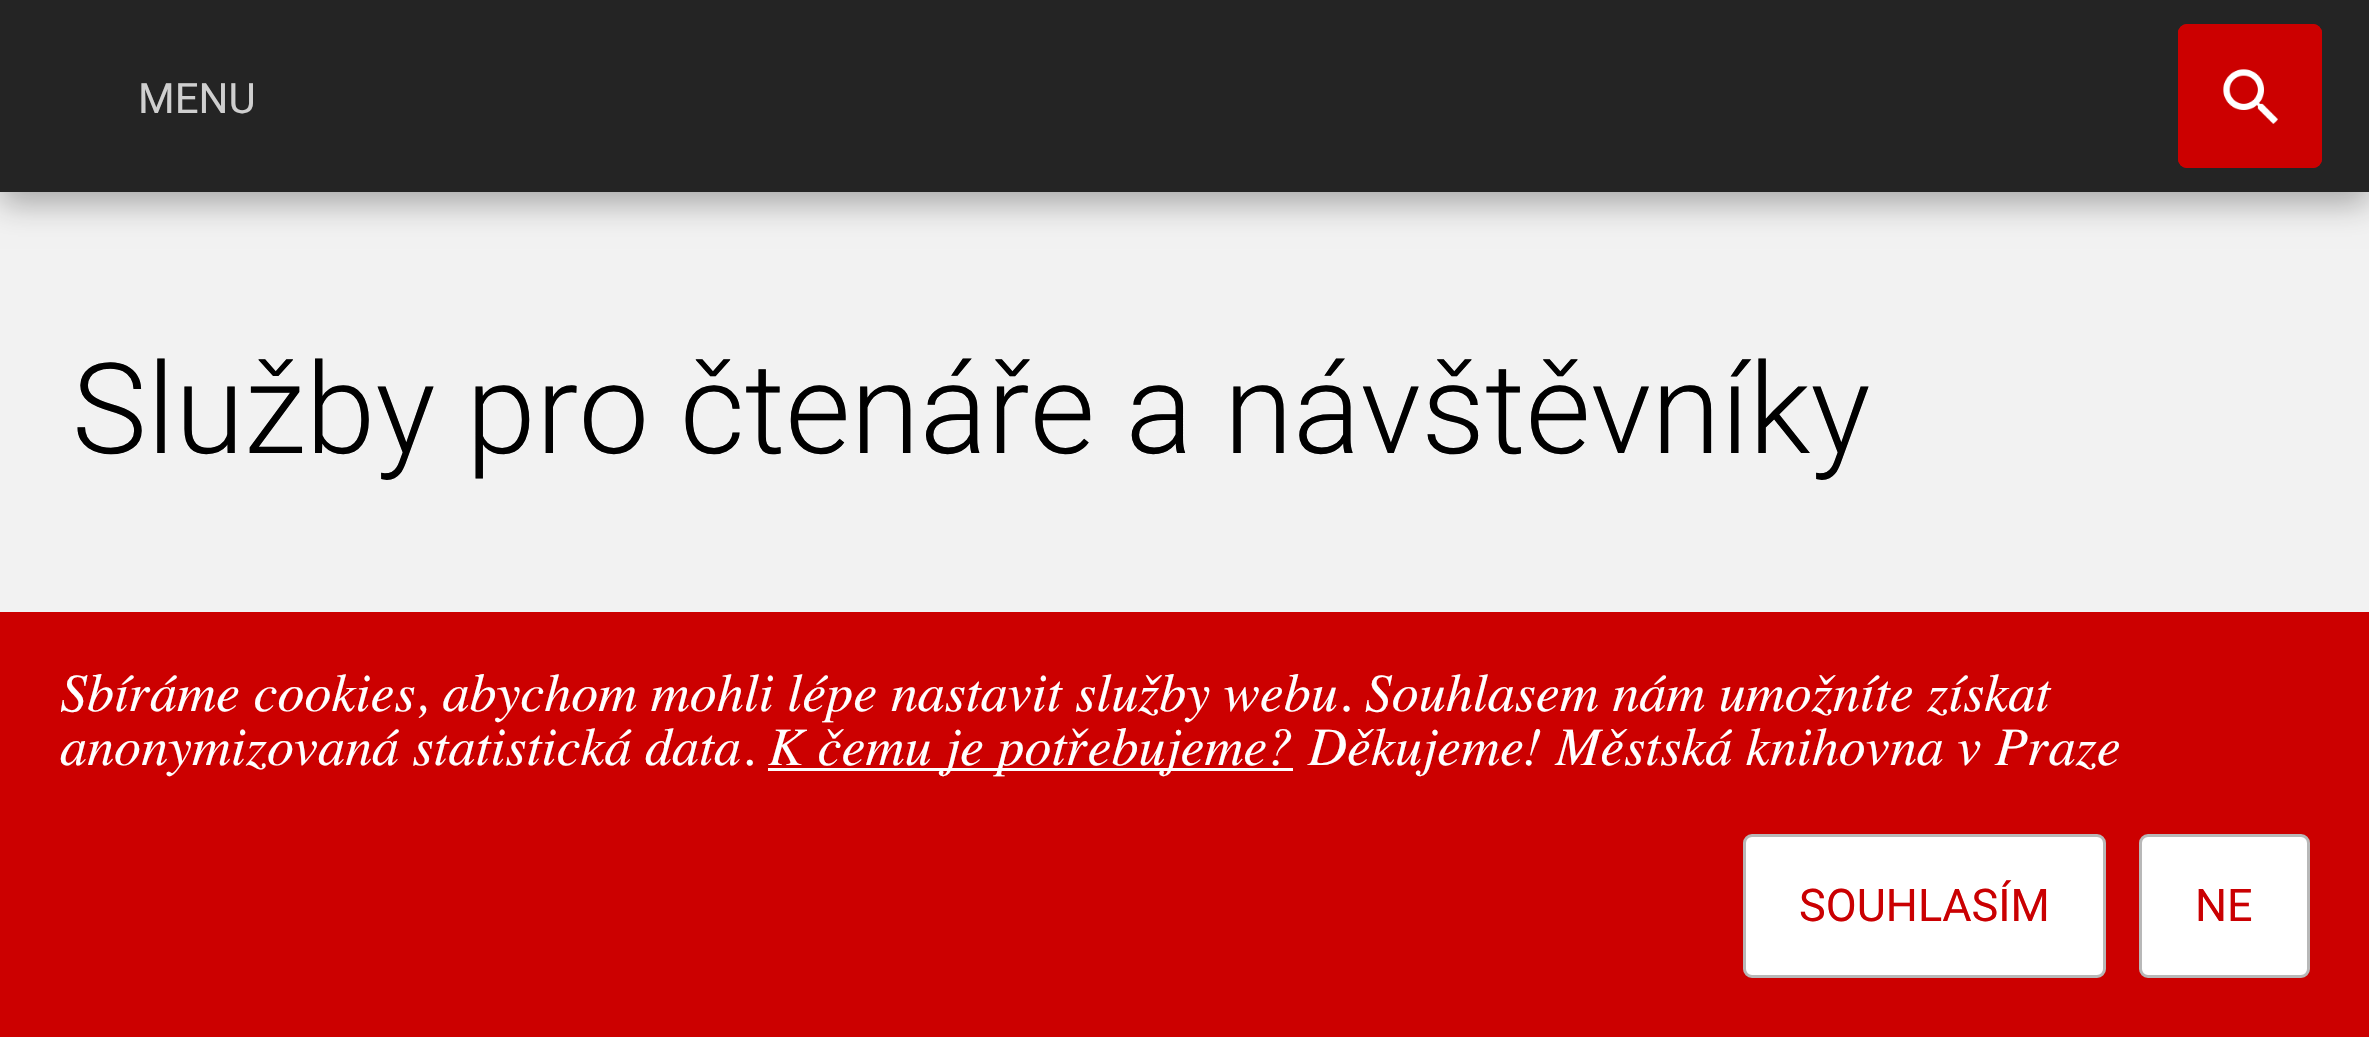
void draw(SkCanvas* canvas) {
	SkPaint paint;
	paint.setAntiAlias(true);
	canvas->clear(0xfff2f2f2);
	paint.setColor(0x4d000000);
	paint.setMaskFilter(SkMaskFilter::MakeBlur(kNormal_SkBlurStyle, 15));
	canvas->drawRect(SkRect::MakeXYWH(0, 12, 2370, 192), paint);
	paint.setMaskFilter(nullptr);
	paint.setColor(0xff242424);
	canvas->drawRect(SkRect::MakeXYWH(0, 0, 2369, 192), paint);
	SkFont f1(fontMgr->matchFamilyStyle("Roboto", SkFontStyle::Normal()), 42);
	f1.setSubpixel(true);
	paint.setColor(0xffcfcfcf);
	canvas->drawString("MENU", 138, 113, f1, paint);
	paint.setColor(0xffcc0000);
	canvas->drawRoundRect(SkRect::MakeXYWH(2178, 24, 144, 144), 9, 9, paint);
	canvas->drawImageRect(SkImages::DeferredFromEncodedData(SkData::MakeFromFileName("img1.png")), SkRect::MakeXYWH(2223, 69, 55, 55), SkSamplingOptions());
	paint.setStroke(true);
	paint.setStrokeWidth(3);
	canvas->drawRoundRect(SkRect::MakeXYWH(2179.5, 25.5, 141, 141), 7.5, 7.5, paint);
	SkFont f2(fontMgr->matchFamilyStyle("Roboto", SkFontStyle(300, SkFontStyle::kNormal_Width, SkFontStyle::kUpright_Slant)), 126);
	f2.setSubpixel(true);
	paint.setStroke(false);
	paint.setColor(0xff000000);
	canvas->drawString("Služby pro čtenáře a návštěvníky", 72, 453, f2, paint);
	paint.setColor(0xffcc0000);
	canvas->drawRect(SkRect::MakeXYWH(0, 612, 2369, 425), paint);
	SkFont f3(fontMgr->matchFamilyStyle("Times", SkFontStyle::Italic()), 54);
	f3.setSubpixel(true);
	paint.setColor(0xffffffff);
	canvas->drawString("Sbíráme cookies, abychom mohli lépe nastavit služby webu. Souhlasem nám umožníte získat", 60, 711, f3, paint);
	canvas->drawString("anonymizovaná statistická data.", 60, 765, f3, paint);
	canvas->drawRect(SkRect::MakeXYWH(768, 768, 525, 3), paint);
	canvas->drawString("K čemu je potřebujeme?", 768, 765, f3, paint);
	canvas->drawString("Děkujeme! Městská knihovna v Praze", 1308, 765, f3, paint);
	canvas->drawRoundRect(SkRect::MakeXYWH(1744.5, 835.5, 360, 141), 7.5, 7.5, paint);
	paint.setStroke(true);
	paint.setColor(0xffb8b8b8);
	canvas->drawRoundRect(SkRect::MakeXYWH(1744.5, 835.5, 360, 141), 7.5, 7.5, paint);
	SkFont f4(fontMgr->matchFamilyStyle("Roboto", SkFontStyle::Normal()), 45);
	f4.setSubpixel(true);
	paint.setStroke(false);
	paint.setColor(0xffca0002);
	canvas->drawString("SOUHLASÍM", 1799, 921, f4, paint);
	paint.setColor(0xffffffff);
	canvas->drawRoundRect(SkRect::MakeXYWH(2140.5, 835.5, 168, 141), 7.5, 7.5, paint);
	paint.setStroke(true);
	paint.setColor(0xffb8b8b8);
	canvas->drawRoundRect(SkRect::MakeXYWH(2140.5, 835.5, 168, 141), 7.5, 7.5, paint);
	paint.setStroke(false);
	paint.setColor(0xffca0002);
	canvas->drawString("NE", 2195, 921, f4, paint);
}
